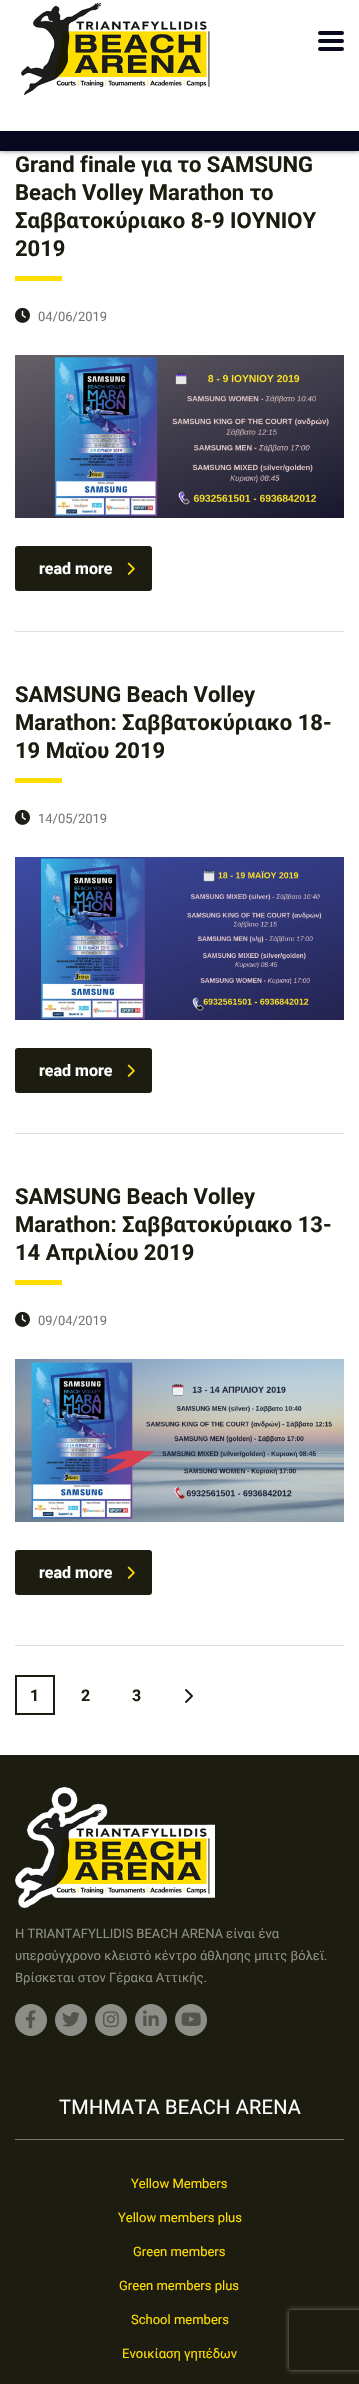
void draw(SkCanvas* canvas) {
	SkPaint paint;
	paint.setAntiAlias(true);
	auto spacedText = [&](const char* s, float x, float y, const SkFont& font, const SkPaint& ink, float letter, float word) {
		std::vector<SkGlyphID> glyphs(font.countText(s, strlen(s), SkTextEncoding::kUTF8));
		std::vector<float> xs(glyphs.size());
		font.textToGlyphs(s, strlen(s), SkTextEncoding::kUTF8, glyphs);
		font.getXPos(glyphs, xs, x);
		float extra = 0;
		for (size_t i = 0; i < glyphs.size(); i++) {
			xs[i] += extra;
			extra += letter + word * (glyphs[i] == font.unicharToGlyph(' '));
		}
		canvas->drawTextBlob(SkTextBlob::MakeFromPosHGlyphs(glyphs, xs, y, font), 0, 0, ink);
	};
	auto svgPath = [&](const char* data, bool evenOdd = false) {
		SkPath result = *SkParsePath::FromSVGString(data);
		if (evenOdd) result.setFillType(SkPathFillType::kEvenOdd);
		return result;
	};
	canvas->clear(0xffffffff);
	paint.setColor(0x85000000);
	paint.setMaskFilter(SkMaskFilter::MakeBlur(kNormal_SkBlurStyle, 2.5));
	canvas->drawRect(SkRect::MakeXYWH(0, -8, 359, 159), paint);
	paint.setMaskFilter(nullptr);
	paint.setColor(0xff090821);
	canvas->drawRect(SkRect::MakeXYWH(0, 131, 359, 20), paint);
	paint.setColor(0xffffffff);
	canvas->drawRect(SkRect::MakeXYWH(0, 0, 359, 131), paint);
	canvas->drawImageRect(SkImages::DeferredFromEncodedData(SkData::MakeFromFileName("img1.png")), SkRect::MakeXYWH(21, 2, 189, 93), SkSamplingOptions());
	paint.setColor(0xff090821);
	canvas->drawRoundRect(SkRect::MakeXYWH(318, 39, 26, 4), 2, 2, paint);
	canvas->drawRoundRect(SkRect::MakeXYWH(318, 31, 26, 4), 2, 2, paint);
	canvas->drawRoundRect(SkRect::MakeXYWH(318, 47, 26, 4), 2, 2, paint);
	paint.setColor(0xffdddddd);
	canvas->drawRect(SkRect::MakeXYWH(15, 631, 329, 1), paint);
	SkFont f1(fontMgr->matchFamilyStyle("Roboto", SkFontStyle::Bold()), 22);
	f1.setSubpixel(true);
	paint.setColor(0xff1d1c11);
	canvas->drawString("Grand finale για το SAMSUNG", 15, 172, f1, paint);
	canvas->drawString("Beach Volley Marathon το", 15, 200, f1, paint);
	canvas->drawString("Σαββατοκύριακο 8-9 ΙΟΥΝΙΟΥ", 15, 228, f1, paint);
	canvas->drawString("2019", 15, 256, f1, paint);
	paint.setColor(0xffffdd00);
	canvas->drawRect(SkRect::MakeXYWH(15, 276, 47, 5), paint);
	canvas->drawImageRect(SkImages::DeferredFromEncodedData(SkData::MakeFromFileName("img2.png")), SkRect::MakeXYWH(15, 307, 15, 16), SkSamplingOptions());
	SkFont f2(fontMgr->matchFamilyStyle("Roboto", SkFontStyle::Normal()), 13);
	f2.setSubpixel(true);
	paint.setColor(0xff777777);
	canvas->drawString("04/06/2019", 38, 321, f2, paint);
	canvas->drawImageRect(SkImages::DeferredFromEncodedData(SkData::MakeFromFileName("img3.png")), SkRect::MakeXYWH(15, 355, 329, 163), SkSamplingOptions());
	paint.setColor(0xff1d1c11);
	canvas->drawRoundRect(SkRect::MakeXYWH(16.5, 547.5, 134, 42), 1.5, 1.5, paint);
	paint.setStroke(true);
	paint.setStrokeWidth(3);
	canvas->drawRoundRect(SkRect::MakeXYWH(16.5, 547.5, 134, 42), 1.5, 1.5, paint);
	SkFont f3(fontMgr->matchFamilyStyle("Roboto", SkFontStyle::Bold()), 16);
	f3.setSubpixel(true);
	paint.setStroke(false);
	paint.setColor(0xffffffff);
	canvas->drawString("read more", 39, 574, f3, paint);
	canvas->drawImageRect(SkImages::DeferredFromEncodedData(SkData::MakeFromFileName("img4.png")), SkRect::MakeXYWH(127, 562, 8, 13), SkSamplingOptions());
	paint.setColor(0xffdddddd);
	canvas->drawRect(SkRect::MakeXYWH(15, 1133, 329, 1), paint);
	paint.setColor(0xff1d1c11);
	canvas->drawString("SAMSUNG Beach Volley", 15, 702, f1, paint);
	canvas->drawString("Marathon: Σαββατοκύριακο 18-", 15, 730, f1, paint);
	canvas->drawString("19 Μαϊου 2019", 15, 758, f1, paint);
	paint.setColor(0xffffdd00);
	canvas->drawRect(SkRect::MakeXYWH(15, 778, 47, 5), paint);
	canvas->drawImageRect(SkImages::DeferredFromEncodedData(SkData::MakeFromFileName("img2.png")), SkRect::MakeXYWH(15, 809, 15, 16), SkSamplingOptions());
	paint.setColor(0xff777777);
	canvas->drawString("14/05/2019", 38, 823, f2, paint);
	canvas->drawImageRect(SkImages::DeferredFromEncodedData(SkData::MakeFromFileName("img5.png")), SkRect::MakeXYWH(15, 857, 329, 163), SkSamplingOptions());
	paint.setColor(0xff1d1c11);
	canvas->drawRoundRect(SkRect::MakeXYWH(16.5, 1049.5, 134, 42), 1.5, 1.5, paint);
	paint.setStroke(true);
	canvas->drawRoundRect(SkRect::MakeXYWH(16.5, 1049.5, 134, 42), 1.5, 1.5, paint);
	paint.setStroke(false);
	paint.setColor(0xffffffff);
	canvas->drawString("read more", 39, 1076, f3, paint);
	canvas->drawImageRect(SkImages::DeferredFromEncodedData(SkData::MakeFromFileName("img4.png")), SkRect::MakeXYWH(127, 1064, 8, 13), SkSamplingOptions());
	paint.setColor(0xffdddddd);
	canvas->drawRect(SkRect::MakeXYWH(15, 1645, 329, 1), paint);
	paint.setColor(0xff1d1c11);
	canvas->drawString("SAMSUNG Beach Volley", 15, 1204, f1, paint);
	canvas->drawString("Marathon: Σαββατοκύριακο 13-", 15, 1232, f1, paint);
	canvas->drawString("14 Απριλίου 2019", 15, 1260, f1, paint);
	paint.setColor(0xffffdd00);
	canvas->drawRect(SkRect::MakeXYWH(15, 1280, 47, 5), paint);
	canvas->drawImageRect(SkImages::DeferredFromEncodedData(SkData::MakeFromFileName("img2.png")), SkRect::MakeXYWH(15, 1311, 15, 16), SkSamplingOptions());
	paint.setColor(0xff777777);
	canvas->drawString("09/04/2019", 38, 1325, f2, paint);
	canvas->drawImageRect(SkImages::DeferredFromEncodedData(SkData::MakeFromFileName("img6.png")), SkRect::MakeXYWH(15, 1359, 329, 163), SkSamplingOptions());
	paint.setColor(0xff1d1c11);
	canvas->drawRoundRect(SkRect::MakeXYWH(16.5, 1551.5, 134, 42), 1.5, 1.5, paint);
	paint.setStroke(true);
	canvas->drawRoundRect(SkRect::MakeXYWH(16.5, 1551.5, 134, 42), 1.5, 1.5, paint);
	paint.setStroke(false);
	paint.setColor(0xffffffff);
	canvas->drawString("read more", 39, 1578, f3, paint);
	canvas->drawImageRect(SkImages::DeferredFromEncodedData(SkData::MakeFromFileName("img4.png")), SkRect::MakeXYWH(127, 1566, 8, 13), SkSamplingOptions());
	paint.setStroke(true);
	paint.setStrokeWidth(2);
	paint.setColor(0xff1d1c11);
	canvas->drawRect(SkRect::MakeXYWH(16, 1676, 38, 38), paint);
	paint.setStroke(false);
	canvas->drawString("1", 30, 1701, f3, paint);
	canvas->drawString("2", 81, 1701, f3, paint);
	canvas->drawString("3", 132, 1701, f3, paint);
	canvas->drawImageRect(SkImages::DeferredFromEncodedData(SkData::MakeFromFileName("img7.png")), SkRect::MakeXYWH(185, 1689, 8, 14), SkSamplingOptions());
	canvas->drawRect(SkRect::MakeXYWH(0, 1755, 359, 629), paint);
	canvas->drawImageRect(SkImages::DeferredFromEncodedData(SkData::MakeFromFileName("img8.png")), SkRect::MakeXYWH(15, 1787, 200, 121), SkSamplingOptions());
	paint.setColor(0xff8e8e88);
	canvas->drawString("Η TRIANTAFYLLIDIS BEACH ARENA είναι ένα", 15, 1938, f2, paint);
	canvas->drawString("υπερσύγχρονο κλειστό κέντρο άθλησης μπιτς βόλεϊ.", 15, 1960, f2, paint);
	canvas->drawString("Βρίσκεται στον Γέρακα Αττικής.", 15, 1982, f2, paint);
	canvas->drawCircle(31, 2020, 16, paint);
	canvas->drawImageRect(SkImages::DeferredFromEncodedData(SkData::MakeFromFileName("img9.png")), SkRect::MakeXYWH(25, 2010, 11, 19), SkSamplingOptions());
	canvas->drawCircle(71, 2020, 16, paint);
	canvas->drawImageRect(SkImages::DeferredFromEncodedData(SkData::MakeFromFileName("img10.png")), SkRect::MakeXYWH(62, 2012, 18, 15), SkSamplingOptions());
	canvas->drawCircle(111, 2020, 16, paint);
	canvas->drawImageRect(SkImages::DeferredFromEncodedData(SkData::MakeFromFileName("img11.png")), SkRect::MakeXYWH(103, 2011, 16, 17), SkSamplingOptions());
	canvas->drawCircle(151, 2020, 16, paint);
	canvas->drawImageRect(SkImages::DeferredFromEncodedData(SkData::MakeFromFileName("img12.png")), SkRect::MakeXYWH(143, 2010, 16, 16), SkSamplingOptions());
	canvas->drawCircle(191, 2020, 16, paint);
	canvas->drawImageRect(SkImages::DeferredFromEncodedData(SkData::MakeFromFileName("img13.png")), SkRect::MakeXYWH(181, 2012, 20, 14), SkSamplingOptions());
	paint.setColor(0xff75746f);
	canvas->drawRect(SkRect::MakeXYWH(15, 2139, 329, 1), paint);
	SkFont f4(fontMgr->matchFamilyStyle("Roboto", SkFontStyle::Normal()), 20);
	f4.setSubpixel(true);
	paint.setColor(0xffffffff);
	spacedText("ΤΜΗΜΑΤΑ BEACH ARENA", 59, 2114, f4, paint, 0.25, 0);
	paint.setColor(0xffffdd00);
	canvas->drawString("Yellow Members", 131, 2188, f2, paint);
	canvas->drawString("Yellow members plus", 118, 2222, f2, paint);
	canvas->drawString("Green members", 133, 2256, f2, paint);
	canvas->drawString("Green members plus", 119, 2290, f2, paint);
	canvas->drawString("School members", 131, 2324, f2, paint);
	canvas->drawString("Ενοικίαση γηπέδων", 122, 2358, f2, paint);
	canvas->save();
	canvas->clipPath(svgPath("M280 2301H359V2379H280ZM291 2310H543C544 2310 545 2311 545 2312V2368C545 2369 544 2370 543 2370H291C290 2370 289 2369 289 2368V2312C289 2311 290 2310 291 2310Z", true), true);
	paint.setColor(0xff808080);
	paint.setMaskFilter(SkMaskFilter::MakeBlur(kNormal_SkBlurStyle, 2.5));
	canvas->drawRoundRect(SkRect::MakeXYWH(289, 2310, 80, 60), 2, 2, paint);
	paint.setMaskFilter(nullptr);
	canvas->restore();
}
